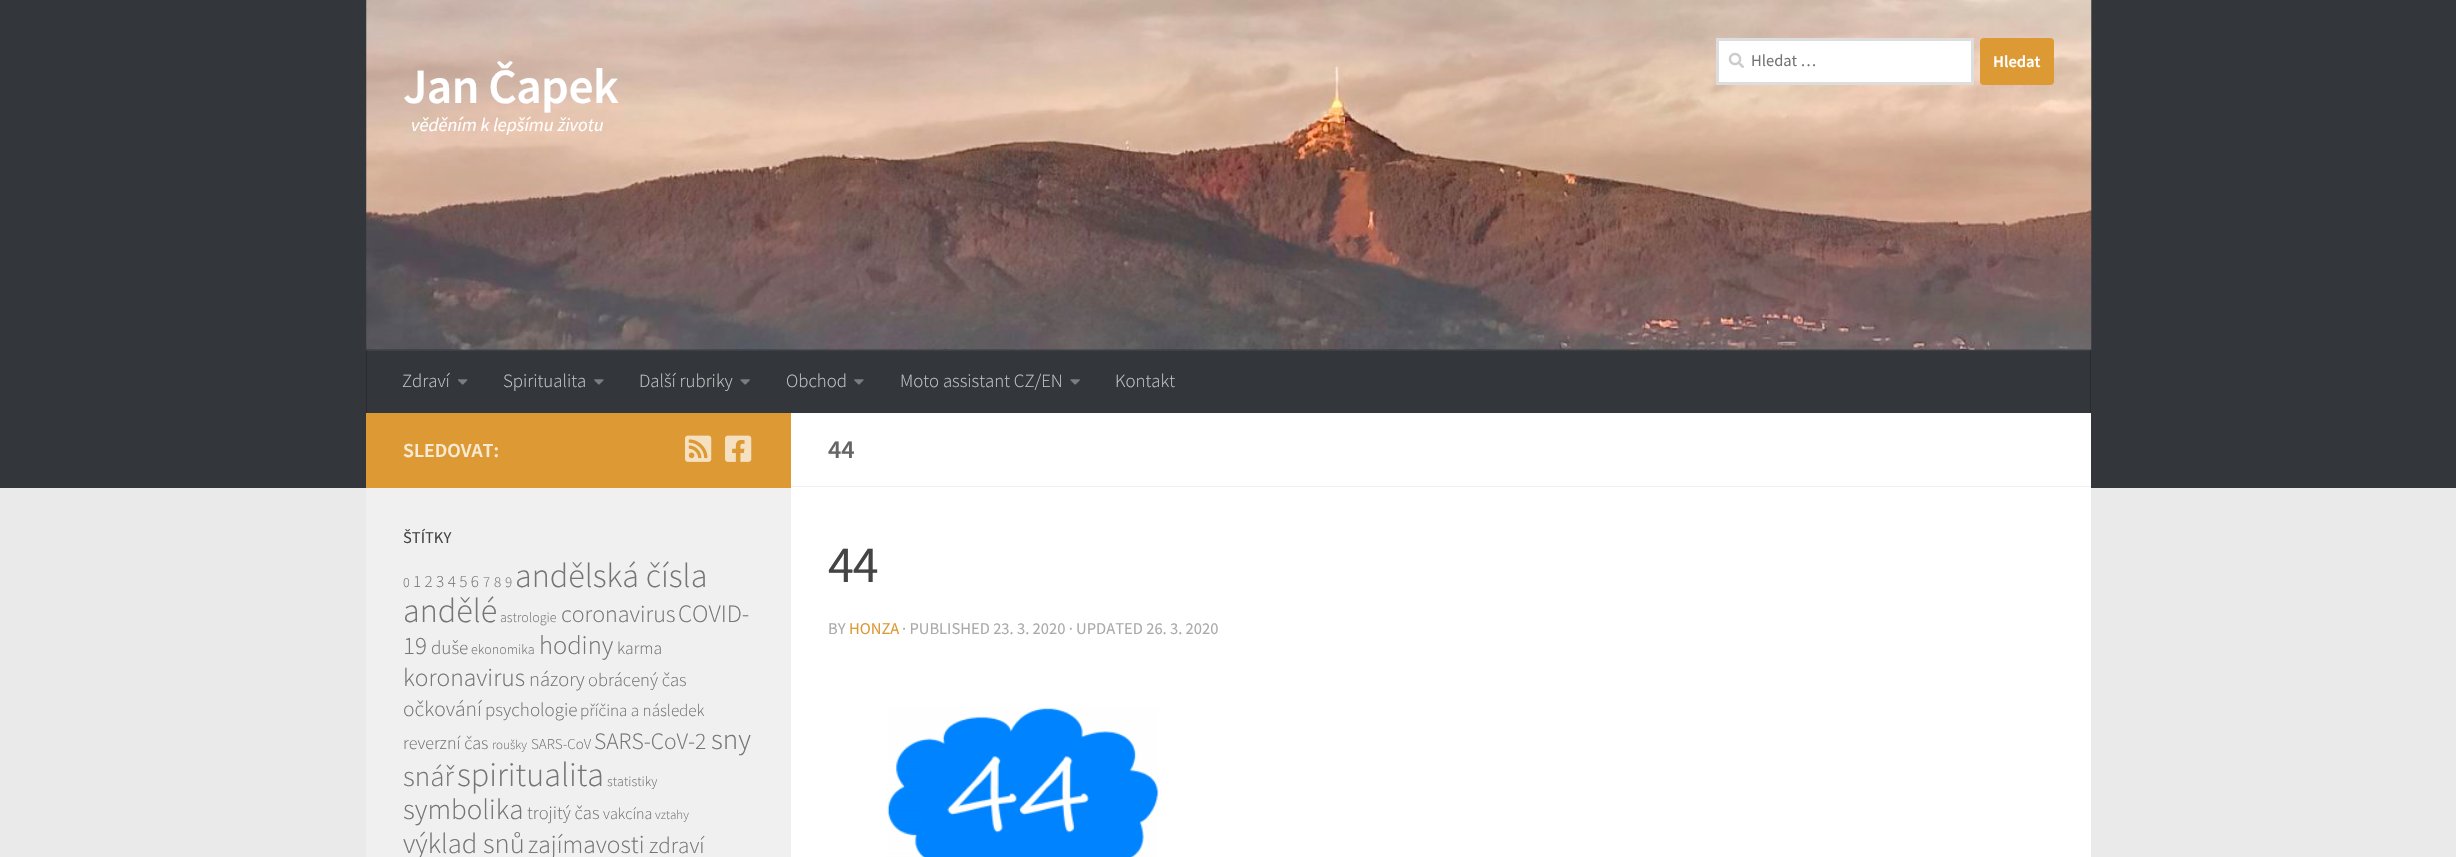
void draw(SkCanvas* canvas) {
	SkPaint paint;
	paint.setAntiAlias(true);
	auto spacedText = [&](const char* s, float x, float y, const SkFont& font, const SkPaint& ink, float letter, float word) {
		std::vector<SkGlyphID> glyphs(font.countText(s, strlen(s), SkTextEncoding::kUTF8));
		std::vector<float> xs(glyphs.size());
		font.textToGlyphs(s, strlen(s), SkTextEncoding::kUTF8, glyphs);
		font.getXPos(glyphs, xs, x);
		float extra = 0;
		for (size_t i = 0; i < glyphs.size(); i++) {
			xs[i] += extra;
			extra += letter + word * (glyphs[i] == font.unicharToGlyph(' '));
		}
		canvas->drawTextBlob(SkTextBlob::MakeFromPosHGlyphs(glyphs, xs, y, font), 0, 0, ink);
	};
	auto svgPath = [&](const char* data, bool evenOdd = false) {
		SkPath result = *SkParsePath::FromSVGString(data);
		if (evenOdd) result.setFillType(SkPathFillType::kEvenOdd);
		return result;
	};
	canvas->clear(0xffeaeaea);
	paint.setColor(0xff33363b);
	canvas->drawRect(SkRect::MakeXYWH(0, 0, 2456, 488), paint);
	paint.setColor(0xff3d4045);
	canvas->drawRect(SkRect::MakeXYWH(366, 350, 1725, 1), paint);
	canvas->drawImageRect(SkImages::DeferredFromEncodedData(SkData::MakeFromFileName("img1.png")), SkRect::MakeXYWH(366, 0, 1726, 350), SkSamplingOptions());
	SkFont f1(fontMgr->matchFamilyStyle("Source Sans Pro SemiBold", SkFontStyle(600, SkFontStyle::kNormal_Width, SkFontStyle::kUpright_Slant)), 49.5);
	f1.setSubpixel(true);
	paint.setColor(0xffffffff);
	spacedText("Jan Čapek", 403, 103, f1, paint, -0.6, 0);
	SkFont f2(fontMgr->matchFamilyStyle("Source Sans Pro", SkFontStyle::Italic()), 18.75);
	f2.setSubpixel(true);
	canvas->drawString("věděním k lepšímu životu", 411, 131, f2, paint);
	canvas->drawRect(SkRect::MakeXYWH(1717.5, 39.5, 255, 44), paint);
	paint.setStroke(true);
	paint.setStrokeWidth(3);
	paint.setColor(0xffdddddd);
	canvas->drawRect(SkRect::MakeXYWH(1717.5, 39.5, 255, 44), paint);
	canvas->drawImageRect(SkImages::DeferredFromEncodedData(SkData::MakeFromFileName("img2.png")), SkRect::MakeXYWH(1728, 52, 16, 16), SkSamplingOptions());
	SkFont f3(fontMgr->matchFamilyStyle("Source Sans Pro", SkFontStyle::Normal()), 16.5);
	f3.setSubpixel(true);
	paint.setStroke(false);
	paint.setColor(0xff757575);
	canvas->drawString("Hledat …", 1751, 66, f3, paint);
	paint.setColor(0xffdd9933);
	canvas->drawRoundRect(SkRect::MakeXYWH(1980, 38, 74, 47), 4, 4, paint);
	SkFont f4(fontMgr->matchFamilyStyle("Source Sans Pro SemiBold", SkFontStyle(600, SkFontStyle::kNormal_Width, SkFontStyle::kUpright_Slant)), 16.5);
	f4.setSubpixel(true);
	paint.setColor(0xffffffff);
	canvas->drawString("Hledat", 1993, 67, f4, paint);
	paint.setColor(0x33000000);
	canvas->drawPath(svgPath("M366 349V411V350H2091V349Z"), paint);
	paint.setColor(0xff292b2f);
	canvas->drawRect(SkRect::MakeXYWH(2090, 350, 1, 63), paint);
	paint.setColor(0xff343639);
	canvas->drawRect(SkRect::MakeXYWH(2090, 350, 1, 1), paint);
	paint.setColor(0xff292b2f);
	canvas->drawRect(SkRect::MakeXYWH(366, 350, 1, 63), paint);
	paint.setColor(0xff343639);
	canvas->drawRect(SkRect::MakeXYWH(366, 350, 1, 1), paint);
	SkFont f5(fontMgr->matchFamilyStyle("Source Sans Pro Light", SkFontStyle(300, SkFontStyle::kNormal_Width, SkFontStyle::kUpright_Slant)), 18.75);
	f5.setSubpixel(true);
	paint.setColor(0xffc2c3c4);
	canvas->drawString("Zdraví", 402, 387, f5, paint);
	canvas->drawImageRect(SkImages::DeferredFromEncodedData(SkData::MakeFromFileName("img3.png")), SkRect::MakeXYWH(458, 379, 10, 6), SkSamplingOptions());
	canvas->drawString("Spiritualita", 503, 387, f5, paint);
	canvas->drawImageRect(SkImages::DeferredFromEncodedData(SkData::MakeFromFileName("img4.png")), SkRect::MakeXYWH(594, 379, 10, 6), SkSamplingOptions());
	canvas->drawString("Další rubriky", 639, 387, f5, paint);
	canvas->drawImageRect(SkImages::DeferredFromEncodedData(SkData::MakeFromFileName("img5.png")), SkRect::MakeXYWH(740, 379, 10, 6), SkSamplingOptions());
	canvas->drawString("Obchod", 786, 387, f5, paint);
	canvas->drawImageRect(SkImages::DeferredFromEncodedData(SkData::MakeFromFileName("img4.png")), SkRect::MakeXYWH(854, 379, 10, 6), SkSamplingOptions());
	canvas->drawString("Moto assistant CZ/EN", 900, 387, f5, paint);
	canvas->drawImageRect(SkImages::DeferredFromEncodedData(SkData::MakeFromFileName("img5.png")), SkRect::MakeXYWH(1070, 379, 10, 6), SkSamplingOptions());
	canvas->drawString("Kontakt", 1115, 387, f5, paint);
	paint.setColor(0xffffffff);
	canvas->drawRect(SkRect::MakeXYWH(791, 413, 1300, 444), paint);
	paint.setColor(0xffdd9933);
	canvas->drawRect(SkRect::MakeXYWH(366, 413, 425, 75), paint);
	SkFont f6(fontMgr->matchFamilyStyle("Source Sans Pro SemiBold", SkFontStyle(600, SkFontStyle::kNormal_Width, SkFontStyle::kUpright_Slant)), 20);
	f6.setSubpixel(true);
	paint.setColor(0xfff8ebd6);
	canvas->drawString("SLEDOVAT:", 403, 457, f6, paint);
	canvas->drawImageRect(SkImages::DeferredFromEncodedData(SkData::MakeFromFileName("img6.png")), SkRect::MakeXYWH(685, 435, 27, 27), SkSamplingOptions());
	canvas->drawImageRect(SkImages::DeferredFromEncodedData(SkData::MakeFromFileName("img7.png")), SkRect::MakeXYWH(725, 435, 27, 27), SkSamplingOptions());
	paint.setColor(0xfff0f0f0);
	canvas->drawRect(SkRect::MakeXYWH(366, 488, 425, 369), paint);
	paint.setColor(0xff444444);
	canvas->drawString("ŠTÍTKY", 403, 543, f3, paint);
	SkFont f7(fontMgr->matchFamilyStyle("Source Sans Pro Light", SkFontStyle(300, SkFontStyle::kNormal_Width, SkFontStyle::kUpright_Slant)), 14);
	f7.setSubpixel(true);
	paint.setColor(0xff757575);
	canvas->drawString("0", 403, 587, f7, paint);
	SkFont f8(fontMgr->matchFamilyStyle("Source Sans Pro Light", SkFontStyle(300, SkFontStyle::kNormal_Width, SkFontStyle::kUpright_Slant)), 17);
	f8.setSubpixel(true);
	canvas->drawString("1 2 3 4 5 6", 413, 587, f8, paint);
	SkFont f9(fontMgr->matchFamilyStyle("Source Sans Pro Light", SkFontStyle(300, SkFontStyle::kNormal_Width, SkFontStyle::kUpright_Slant)), 15);
	f9.setSubpixel(true);
	canvas->drawString("7", 483, 587, f9, paint);
	canvas->drawString("8", 494, 587, f9, paint);
	canvas->drawString("9", 505, 587, f9, paint);
	SkFont f10(fontMgr->matchFamilyStyle("Source Sans Pro Light", SkFontStyle(300, SkFontStyle::kNormal_Width, SkFontStyle::kUpright_Slant)), 34);
	f10.setSubpixel(true);
	canvas->drawString("andělská čísla", 515, 587, f10, paint);
	canvas->drawString("andělé", 403, 622, f10, paint);
	canvas->drawString("astrologie", 500, 622, f7, paint);
	SkFont f11(fontMgr->matchFamilyStyle("Source Sans Pro Light", SkFontStyle(300, SkFontStyle::kNormal_Width, SkFontStyle::kUpright_Slant)), 24);
	f11.setSubpixel(true);
	canvas->drawString("coronavirus", 561, 622, f11, paint);
	SkFont f12(fontMgr->matchFamilyStyle("Source Sans Pro Light", SkFontStyle(300, SkFontStyle::kNormal_Width, SkFontStyle::kUpright_Slant)), 25);
	f12.setSubpixel(true);
	canvas->drawString("COVID-", 678, 622, f12, paint);
	canvas->drawString("19", 403, 654, f12, paint);
	SkFont f13(fontMgr->matchFamilyStyle("Source Sans Pro Light", SkFontStyle(300, SkFontStyle::kNormal_Width, SkFontStyle::kUpright_Slant)), 19);
	f13.setSubpixel(true);
	canvas->drawString("duše", 431, 654, f13, paint);
	canvas->drawString("ekonomika", 471, 654, f7, paint);
	SkFont f14(fontMgr->matchFamilyStyle("Source Sans Pro Light", SkFontStyle(300, SkFontStyle::kNormal_Width, SkFontStyle::kUpright_Slant)), 26.5);
	f14.setSubpixel(true);
	canvas->drawString("hodiny", 539, 654, f14, paint);
	SkFont f15(fontMgr->matchFamilyStyle("Source Sans Pro Light", SkFontStyle(300, SkFontStyle::kNormal_Width, SkFontStyle::kUpright_Slant)), 17.5);
	f15.setSubpixel(true);
	canvas->drawString("karma", 617, 654, f15, paint);
	SkFont f16(fontMgr->matchFamilyStyle("Source Sans Pro Light", SkFontStyle(300, SkFontStyle::kNormal_Width, SkFontStyle::kUpright_Slant)), 25.5);
	f16.setSubpixel(true);
	canvas->drawString("koronavirus", 403, 686, f16, paint);
	SkFont f17(fontMgr->matchFamilyStyle("Source Sans Pro Light", SkFontStyle(300, SkFontStyle::kNormal_Width, SkFontStyle::kUpright_Slant)), 20.5);
	f17.setSubpixel(true);
	canvas->drawString("názory", 529, 686, f17, paint);
	SkFont f18(fontMgr->matchFamilyStyle("Source Sans Pro Light", SkFontStyle(300, SkFontStyle::kNormal_Width, SkFontStyle::kUpright_Slant)), 18.5);
	f18.setSubpixel(true);
	canvas->drawString("obrácený čas", 588, 686, f18, paint);
	SkFont f19(fontMgr->matchFamilyStyle("Source Sans Pro Light", SkFontStyle(300, SkFontStyle::kNormal_Width, SkFontStyle::kUpright_Slant)), 21.5);
	f19.setSubpixel(true);
	canvas->drawString("očkování", 403, 716, f19, paint);
	canvas->drawString("psychologie", 485, 716, f13, paint);
	canvas->drawString("příčina a následek", 580, 716, f8, paint);
	SkFont f20(fontMgr->matchFamilyStyle("Source Sans Pro Light", SkFontStyle(300, SkFontStyle::kNormal_Width, SkFontStyle::kUpright_Slant)), 18);
	f20.setSubpixel(true);
	canvas->drawString("reverzní čas", 403, 749, f20, paint);
	SkFont f21(fontMgr->matchFamilyStyle("Source Sans Pro Light", SkFontStyle(300, SkFontStyle::kNormal_Width, SkFontStyle::kUpright_Slant)), 13);
	f21.setSubpixel(true);
	canvas->drawString("roušky", 492, 749, f21, paint);
	canvas->drawString("SARS-CoV", 531, 749, f9, paint);
	SkFont f22(fontMgr->matchFamilyStyle("Source Sans Pro Light", SkFontStyle(300, SkFontStyle::kNormal_Width, SkFontStyle::kUpright_Slant)), 23.5);
	f22.setSubpixel(true);
	canvas->drawString("SARS-CoV-2", 594, 749, f22, paint);
	SkFont f23(fontMgr->matchFamilyStyle("Source Sans Pro Light", SkFontStyle(300, SkFontStyle::kNormal_Width, SkFontStyle::kUpright_Slant)), 29);
	f23.setSubpixel(true);
	canvas->drawString("sny", 711, 749, f23, paint);
	canvas->drawString("snář", 403, 786, f23, paint);
	canvas->drawString("spiritualita", 457, 786, f10, paint);
	canvas->drawString("statistiky", 607, 786, f7, paint);
	canvas->drawString("symbolika", 403, 819, f23, paint);
	canvas->drawString("trojitý čas", 527, 819, f18, paint);
	SkFont f24(fontMgr->matchFamilyStyle("Source Sans Pro Light", SkFontStyle(300, SkFontStyle::kNormal_Width, SkFontStyle::kUpright_Slant)), 16);
	f24.setSubpixel(true);
	canvas->drawString("vakcína", 603, 819, f24, paint);
	canvas->drawString("vztahy", 655, 819, f21, paint);
	SkFont f25(fontMgr->matchFamilyStyle("Source Sans Pro Light", SkFontStyle(300, SkFontStyle::kNormal_Width, SkFontStyle::kUpright_Slant)), 28.5);
	f25.setSubpixel(true);
	canvas->drawString("výklad snů", 403, 853, f25, paint);
	canvas->drawString("zajímavosti", 528, 853, f16, paint);
	SkFont f26(fontMgr->matchFamilyStyle("Source Sans Pro Light", SkFontStyle(300, SkFontStyle::kNormal_Width, SkFontStyle::kUpright_Slant)), 23);
	f26.setSubpixel(true);
	canvas->drawString("zdraví", 649, 853, f26, paint);
	paint.setColor(0xffeeeeee);
	canvas->drawRect(SkRect::MakeXYWH(791, 486, 1300, 1), paint);
	SkFont f27(fontMgr->matchFamilyStyle("Source Sans Pro SemiBold", SkFontStyle(600, SkFontStyle::kNormal_Width, SkFontStyle::kUpright_Slant)), 26);
	f27.setSubpixel(true);
	paint.setColor(0xff666666);
	canvas->drawString("44", 828, 458, f27, paint);
	SkFont f28(fontMgr->matchFamilyStyle("Source Sans Pro", SkFontStyle::Normal()), 52);
	f28.setSubpixel(true);
	paint.setColor(0xff444444);
	spacedText("44", 828, 582, f28, paint, -1, 0);
	paint.setColor(0xffaaaaaa);
	canvas->drawString("BY", 828, 634, f3, paint);
	paint.setColor(0xffdd9933);
	canvas->drawString("HONZA", 849, 634, f3, paint);
	paint.setColor(0xffaaaaaa);
	canvas->drawString("· PUBLISHED 23. 3. 2020 · UPDATED 26. 3. 2020", 902, 634, f3, paint);
	canvas->drawImageRect(SkImages::DeferredFromEncodedData(SkData::MakeFromFileName("img8.png")), SkRect::MakeXYWH(887, 708, 272, 149), SkSamplingOptions());
}
